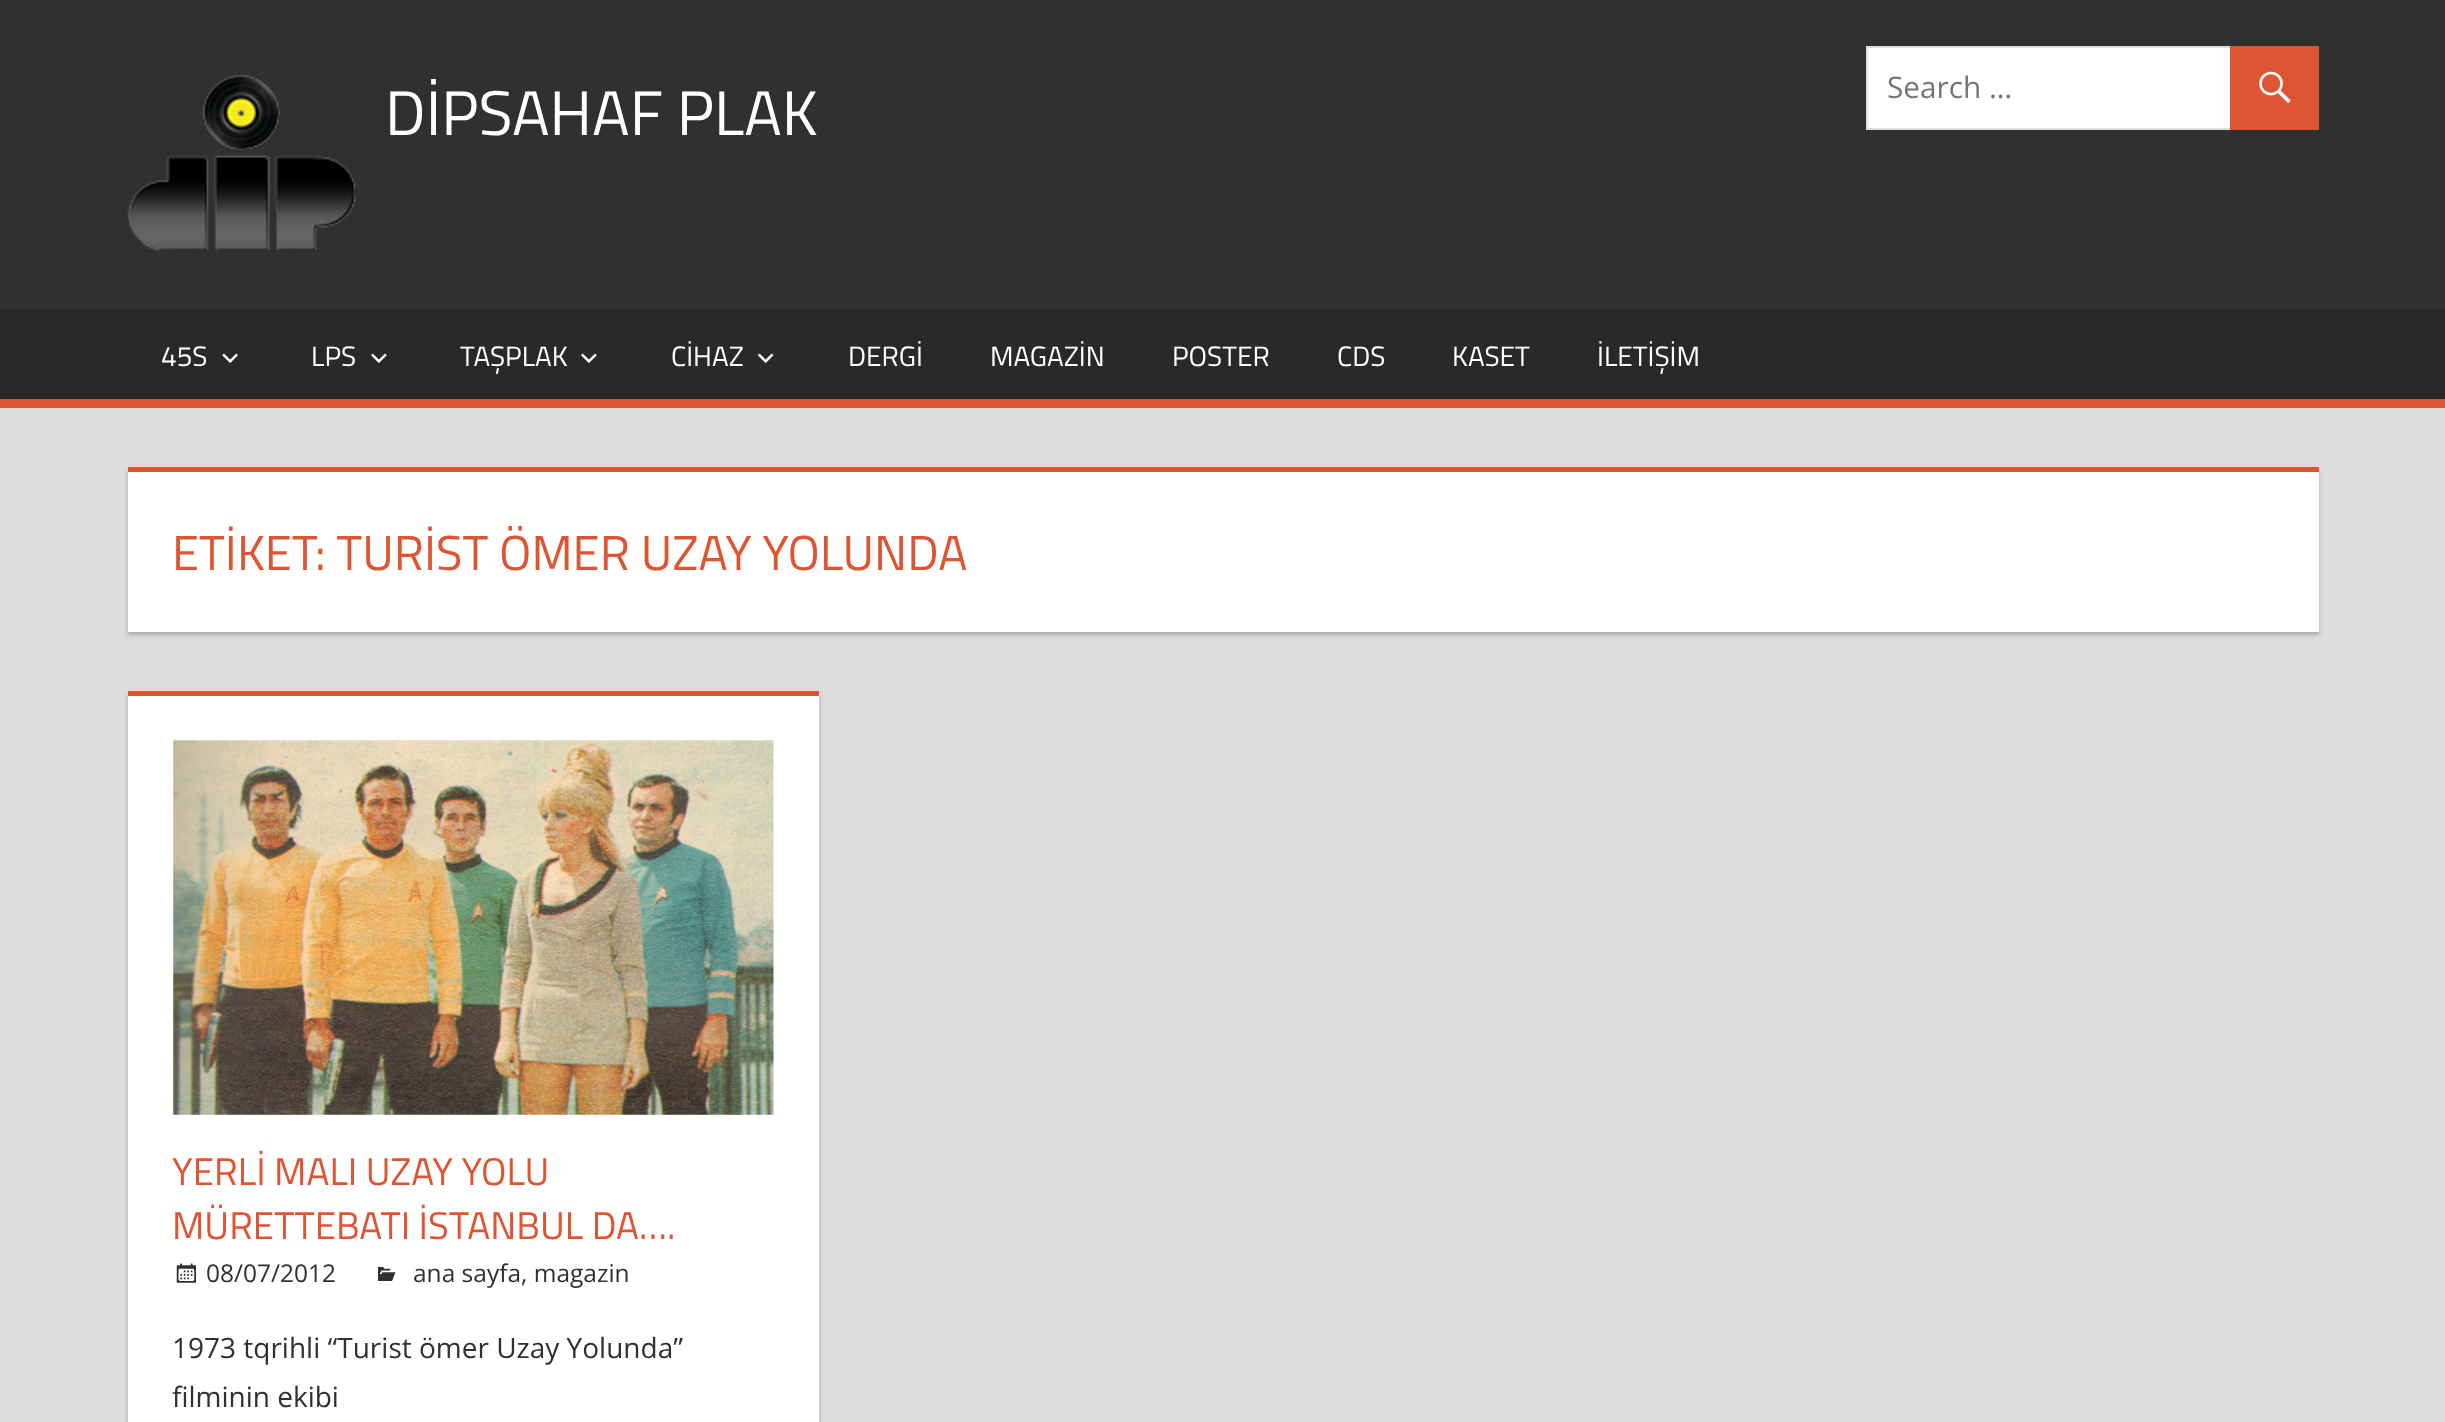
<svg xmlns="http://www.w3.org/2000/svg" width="2445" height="1422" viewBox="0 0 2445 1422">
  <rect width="100%" height="100%" fill="rgb(221,221,221)"/>
  <rect x="0" y="0" width="2445" height="310" fill="rgb(48,48,48)"/>
  <image x="127" y="75" width="229" height="176" href="pic1.png"/>
  <text x="385" y="135" font-family="Titillium Web" font-size="63" fill="rgb(255,255,255)">DİPSAHAF PLAK</text>
  <rect x="1868" y="48" width="362" height="80" fill="rgb(255,255,255)"/>
  <rect x="1867" y="47" width="451" height="82" fill="none" stroke="rgb(221,221,221)" stroke-width="2"/>
  <text x="1887" y="98" font-family="Open Sans" font-size="29.75" fill="rgb(117,117,117)">Search …</text>
  <rect x="2230" y="46" width="89" height="84" fill="rgb(221,85,51)"/>
  <image x="2259" y="71" width="32" height="33" href="pic2.png"/>
  <rect x="0" y="312" width="2445" height="87" fill="rgb(41,41,41)"/>
  <rect x="0" y="310" width="2445" height="2" fill="rgb(39,39,39)"/>
  <rect x="0" y="399" width="2445" height="9" fill="rgb(221,85,51)"/>
  <text x="161" y="366" font-family="Titillium Web" font-size="28" fill="rgb(255,255,255)">45S</text>
  <image x="222" y="353" width="16" height="10" href="pic3.png"/>
  <text x="311" y="366" font-family="Titillium Web" font-size="28" fill="rgb(255,255,255)">LPS</text>
  <image x="371" y="353" width="16" height="10" href="pic4.png"/>
  <text x="460" y="366" font-family="Titillium Web" font-size="28" fill="rgb(255,255,255)">TAŞPLAK</text>
  <image x="581" y="353" width="16" height="10" href="pic4.png"/>
  <text x="671" y="366" font-family="Titillium Web" font-size="28" fill="rgb(255,255,255)">CİHAZ</text>
  <image x="757" y="353" width="17" height="10" href="pic5.png"/>
  <g font-family="Titillium Web" font-size="28" fill="rgb(255,255,255)">
    <text x="848" y="366">DERGİ</text>
    <text x="990" y="366">MAGAZİN</text>
    <text x="1172" y="366">POSTER</text>
    <text x="1337" y="366">CDS</text>
    <text x="1452" y="366">KASET</text>
    <text x="1597" y="366">İLETİŞİM</text>
  </g>
  <rect x="128" y="471" width="2191" height="164" fill="rgb(170,170,170)" filter="blur(2px)"/>
  <rect x="128" y="472" width="2191" height="160" fill="rgb(255,255,255)"/>
  <rect x="128" y="467" width="2191" height="5" fill="rgb(221,85,51)"/>
  <text x="172" y="570" font-family="Titillium Web" font-size="49" fill="rgb(221,85,51)">ETİKET: TURİST ÖMER UZAY YOLUNDA</text>
  <rect x="128" y="695" width="691" height="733" fill="rgb(170,170,170)" filter="blur(2px)"/>
  <rect x="128" y="696" width="691" height="726" fill="rgb(255,255,255)"/>
  <rect x="128" y="691" width="691" height="5" fill="rgb(221,85,51)"/>
  <image x="173" y="740" width="601" height="375" href="pic6.png"/>
  <g font-family="Titillium Web" font-size="38.5" fill="rgb(221,85,51)">
    <text>
      <tspan x="172" y="1185">YERLİ MALI UZAY YOLU</tspan>
      <tspan x="172" y="1239">MÜRETTEBATI İSTANBUL DA….</tspan>
    </text>
  </g>
  <image x="176" y="1263" width="20" height="20" href="pic7.png"/>
  <text x="206" y="1282" font-family="Open Sans" font-size="24.5" fill="rgb(48,48,48)">08/07/2012</text>
  <image x="378" y="1267" width="18" height="14" href="pic8.png"/>
  <text x="413" y="1282" font-family="Open Sans" font-size="24.5" fill="rgb(48,48,48)">ana sayfa, magazin</text>
  <g font-family="Open Sans" font-size="28" fill="rgb(48,48,48)">
    <text>
      <tspan x="172" y="1358">1973 tqrihli “Turist ömer Uzay Yolunda”</tspan>
      <tspan x="172" y="1407">filminin ekibi</tspan>
    </text>
  </g>
</svg>
